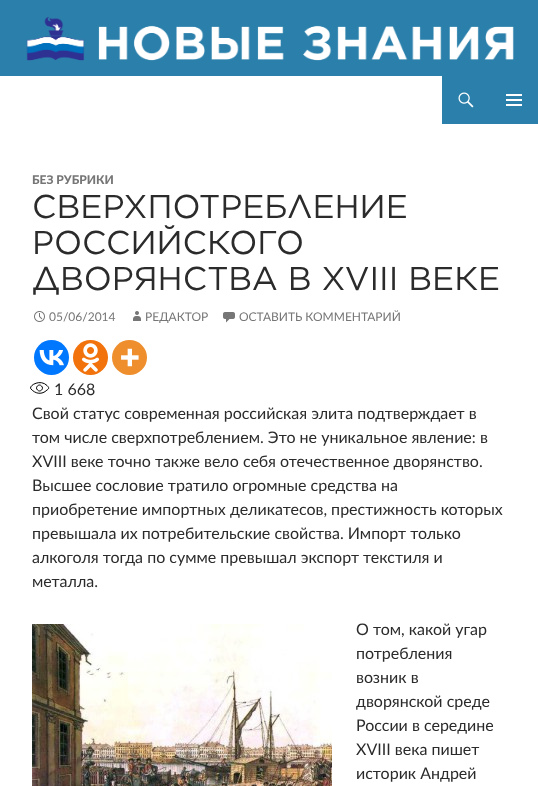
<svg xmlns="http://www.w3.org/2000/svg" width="538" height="786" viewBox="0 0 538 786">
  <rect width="100%" height="100%" fill="rgb(255,255,255)"/>
  <image x="0" y="0" width="538" height="76" href="pic1.png"/>
  <rect x="442" y="76" width="96" height="48" fill="rgb(42,128,171)"/>
  <image x="458" y="92" width="16" height="16" href="pic2.png"/>
  <image x="506" y="94" width="16" height="12" href="pic3.png"/>
  <text x="32" y="184" font-family="Lato" font-size="12" font-weight="900" fill="rgb(118,118,118)">БЕЗ РУБРИКИ</text>
  <g font-family="Gotham" font-size="33" fill="rgb(43,43,43)">
    <text>
      <tspan x="32" y="218">СВЕРХПОТРЕБЛЕНИЕ</tspan>
      <tspan x="32" y="254">РОССИЙСКОГО</tspan>
      <tspan x="32" y="290">ДВОРЯНСТВА В XVIII ВЕКЕ</tspan>
    </text>
  </g>
  <image x="34" y="311" width="11" height="11" href="pic4.png"/>
  <text x="49" y="321" font-family="Lato" font-size="12" fill="rgb(118,118,118)">05/06/2014</text>
  <image x="133" y="311" width="8" height="10" href="pic5.png"/>
  <text x="145" y="321" font-family="Lato" font-size="12" fill="rgb(118,118,118)">РЕДАКТОР</text>
  <image x="223" y="312" width="12" height="11" href="pic6.png"/>
  <text x="239" y="321" font-family="Lato" font-size="12" fill="rgb(118,118,118)">ОСТАВИТЬ КОММЕНТАРИЙ</text>
  <circle cx="51.5" cy="357.5" r="17.5" fill="rgb(0,119,255)"/>
  <image x="39" y="350" width="25" height="16" href="pic7.png"/>
  <circle cx="90.5" cy="357.5" r="17.5" fill="rgb(242,114,12)"/>
  <image x="82" y="343" width="17" height="29" href="pic8.png"/>
  <circle cx="129.5" cy="357.5" r="17.5" fill="rgb(238,142,45)"/>
  <image x="121" y="348" width="18" height="19" href="pic9.png"/>
  <path d="M47 385.5C49 387.5 49.5 388.5 47 390C42 395 35.5 394 31 389C28 386 40 378.5 47 385.5ZM41.5 386C44.5 388.5 40 393 37.5 390C34.5 387.5 39 383 41.5 386Z" fill="none" stroke="rgb(0,0,0)"/>
  <g font-family="Lato" font-size="16" fill="rgb(43,43,43)">
    <text x="54" y="395">1 668</text>
    <text>
      <tspan x="32" y="419">Свой статус современная российская элита подтверждает в</tspan>
      <tspan x="32" y="443">том числе сверхпотреблением. Это не уникальное явление: в</tspan>
      <tspan x="32" y="467">XVIII веке точно также вело себя отечественное дворянство.</tspan>
      <tspan x="32" y="491">Высшее сословие тратило огромные средства на</tspan>
      <tspan x="32" y="515">приобретение импортных деликатесов, престижность которых</tspan>
      <tspan x="32" y="539">превышала их потребительские свойства. Импорт только</tspan>
      <tspan x="32" y="563">алкоголя тогда по сумме превышал экспорт текстиля и</tspan>
      <tspan x="32" y="587">металла.</tspan>
    </text>
  </g>
  <image x="32" y="624" width="300" height="162" href="pic10.png"/>
  <g font-family="Lato" font-size="16" fill="rgb(43,43,43)">
    <text>
      <tspan x="356" y="635">О том, какой угар</tspan>
      <tspan x="356" y="659">потребления</tspan>
      <tspan x="356" y="683">возник в</tspan>
      <tspan x="356" y="707">дворянской среде</tspan>
      <tspan x="356" y="731">России в середине</tspan>
      <tspan x="356" y="755">XVIII века пишет</tspan>
      <tspan x="356" y="779">историк Андрей</tspan>
    </text>
  </g>
</svg>
